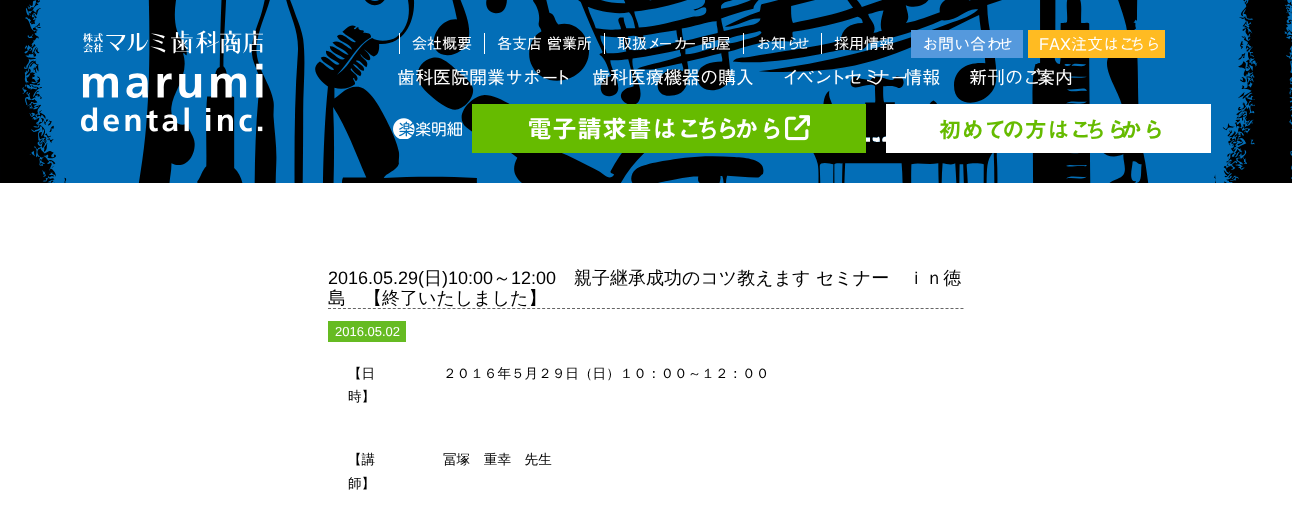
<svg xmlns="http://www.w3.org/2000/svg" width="1292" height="520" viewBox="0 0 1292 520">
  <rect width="100%" height="100%" fill="rgb(255,255,255)"/>
  <image x="0" y="0" width="1292" height="183" href="pic1.png"/>
  <image x="81" y="30" width="182" height="102" href="pic2.png"/>
  <rect x="399" y="33" width="1" height="21" fill="rgb(255,255,255)"/>
  <text x="412" y="49" font-family="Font" font-size="15" fill="rgb(255,255,255)">会社概要</text>
  <rect x="484" y="33" width="1" height="21" fill="rgb(255,255,255)"/>
  <text x="497" y="49" font-family="Font" font-size="15" fill="rgb(255,255,255)">各支店・</text>
  <text x="547" y="49" font-family="Font" font-size="15" fill="rgb(255,255,255)">営業所</text>
  <rect x="604" y="33" width="1" height="21" fill="rgb(255,255,255)"/>
  <text x="617" y="49" font-family="Font" font-size="15" fill="rgb(255,255,255)">取扱メ</text>
  <text x="658" y="49" font-family="Font" font-size="15" fill="rgb(255,255,255)">ーカ</text>
  <text x="682" y="49" font-family="Font" font-size="15" fill="rgb(255,255,255)">ー・</text>
  <text x="701" y="49" font-family="Font" font-size="15" fill="rgb(255,255,255)">問屋</text>
  <rect x="743" y="33" width="1" height="21" fill="rgb(255,255,255)"/>
  <text x="756" y="49" font-family="Font" font-size="15" fill="rgb(255,255,255)">お知ら</text>
  <text x="795" y="49" font-family="Font" font-size="15" fill="rgb(255,255,255)">せ</text>
  <rect x="821" y="33" width="1" height="21" fill="rgb(255,255,255)"/>
  <text x="834" y="49" font-family="Font" font-size="15" fill="rgb(255,255,255)">採用情報</text>
  <rect x="911" y="30" width="112" height="28" fill="rgb(85,153,221)"/>
  <text x="922" y="50" font-family="Font" font-size="16" fill="rgb(255,255,255)">お問い合わ</text>
  <text x="997" y="50" font-family="Font" font-size="16" fill="rgb(255,255,255)">せ</text>
  <rect x="1028" y="30" width="137" height="28" fill="rgb(255,187,34)"/>
  <text x="1039" y="50" font-family="Font" font-size="16" fill="rgb(255,255,255)">FAX注文はこ</text>
  <text x="1129" y="50" font-family="Font" font-size="16" fill="rgb(255,255,255)">ちら</text>
  <g font-family="Font" font-size="18" fill="rgb(255,255,255)">
    <text x="397" y="84">歯科医院開業サポー</text>
    <text x="553" y="84">ト</text>
    <text x="592" y="84">歯科医療機器の購入</text>
    <text x="782" y="84">イ</text>
    <text x="796" y="84">ベン</text>
    <text x="828" y="84">ト</text>
    <text x="838" y="84">・</text>
    <text x="845" y="84">セミ</text>
    <text x="872" y="84">ナー</text>
    <text x="904" y="84">情報</text>
    <text x="969" y="84">新刊のご</text>
    <text x="1037" y="84">案内</text>
  </g>
  <image x="393" y="118" width="69" height="21" href="pic3.png"/>
  <rect x="472" y="104" width="394" height="49" fill="rgb(102,187,0)"/>
  <text x="527" y="138" font-family="Font" font-size="25" font-weight="600" fill="rgb(255,255,255)">電子請求書はこ</text>
  <text x="695" y="138" font-family="Font" font-size="25" font-weight="600" fill="rgb(255,255,255)">ち</text>
  <text x="715" y="138" font-family="Font" font-size="25" font-weight="600" fill="rgb(255,255,255)">ら</text>
  <text x="734" y="138" font-family="Font" font-size="25" font-weight="600" fill="rgb(255,255,255)">から</text>
  <image x="785" y="115" width="25" height="26" href="pic4.png"/>
  <rect x="886" y="104" width="325" height="49" fill="rgb(255,255,255)"/>
  <text x="939" y="138" font-family="Font" font-size="22.5" font-weight="600" fill="rgb(102,187,0)">初めて</text>
  <text x="1002" y="138" font-family="Font" font-size="22.5" font-weight="600" fill="rgb(102,187,0)">の方はこ</text>
  <text x="1084" y="138" font-family="Font" font-size="22.5" font-weight="600" fill="rgb(102,187,0)">ちら</text>
  <text x="1120" y="138" font-family="Font" font-size="22.5" font-weight="600" fill="rgb(102,187,0)">から</text>
  <path d="M328 308.5H964" fill="none" stroke="rgb(102,102,102)" stroke-dasharray="3 1.98"/>
  <text x="328" y="284" font-family="Liberation Sans" font-size="18" fill="rgb(0,0,0)">2016.05.29(</text>
  <text x="424" y="284" font-family="WenQuanYi Zen Hei" font-size="18" font-weight="500" fill="rgb(0,0,0)">日</text>
  <text x="442" y="284" font-family="Liberation Sans" font-size="18" fill="rgb(0,0,0)">)10:00</text>
  <text x="493" y="284" font-family="WenQuanYi Zen Hei" font-size="18" font-weight="500" fill="rgb(0,0,0)">～</text>
  <text x="511" y="284" font-family="Liberation Sans" font-size="18" fill="rgb(0,0,0)">12:00</text>
  <g font-family="WenQuanYi Zen Hei" font-size="18" font-weight="500" fill="rgb(0,0,0)">
    <text x="574" y="284">親子継承成功のコツ教えます セミナー　ｉｎ徳</text>
    <text x="328" y="304">島　【終了いたしました】</text>
  </g>
  <rect x="328" y="321" width="78" height="21" fill="rgb(102,187,34)"/>
  <text x="335" y="336" font-family="Liberation Sans" font-size="13" fill="rgb(255,255,255)">2016.05.02</text>
  <g font-family="WenQuanYi Zen Hei" font-size="13.6" font-weight="500" fill="rgb(0,0,0)">
    <text>
      <tspan x="348" y="378">【日</tspan>
      <tspan x="348" y="401">時】</tspan>
    </text>
    <text x="443" y="378">２０１６年５月２９日（日）１０：００～１２：００</text>
    <text>
      <tspan x="348" y="464">【講</tspan>
      <tspan x="348" y="488">師】</tspan>
    </text>
    <text x="443" y="464">冨塚　重幸　先生</text>
  </g>
</svg>
